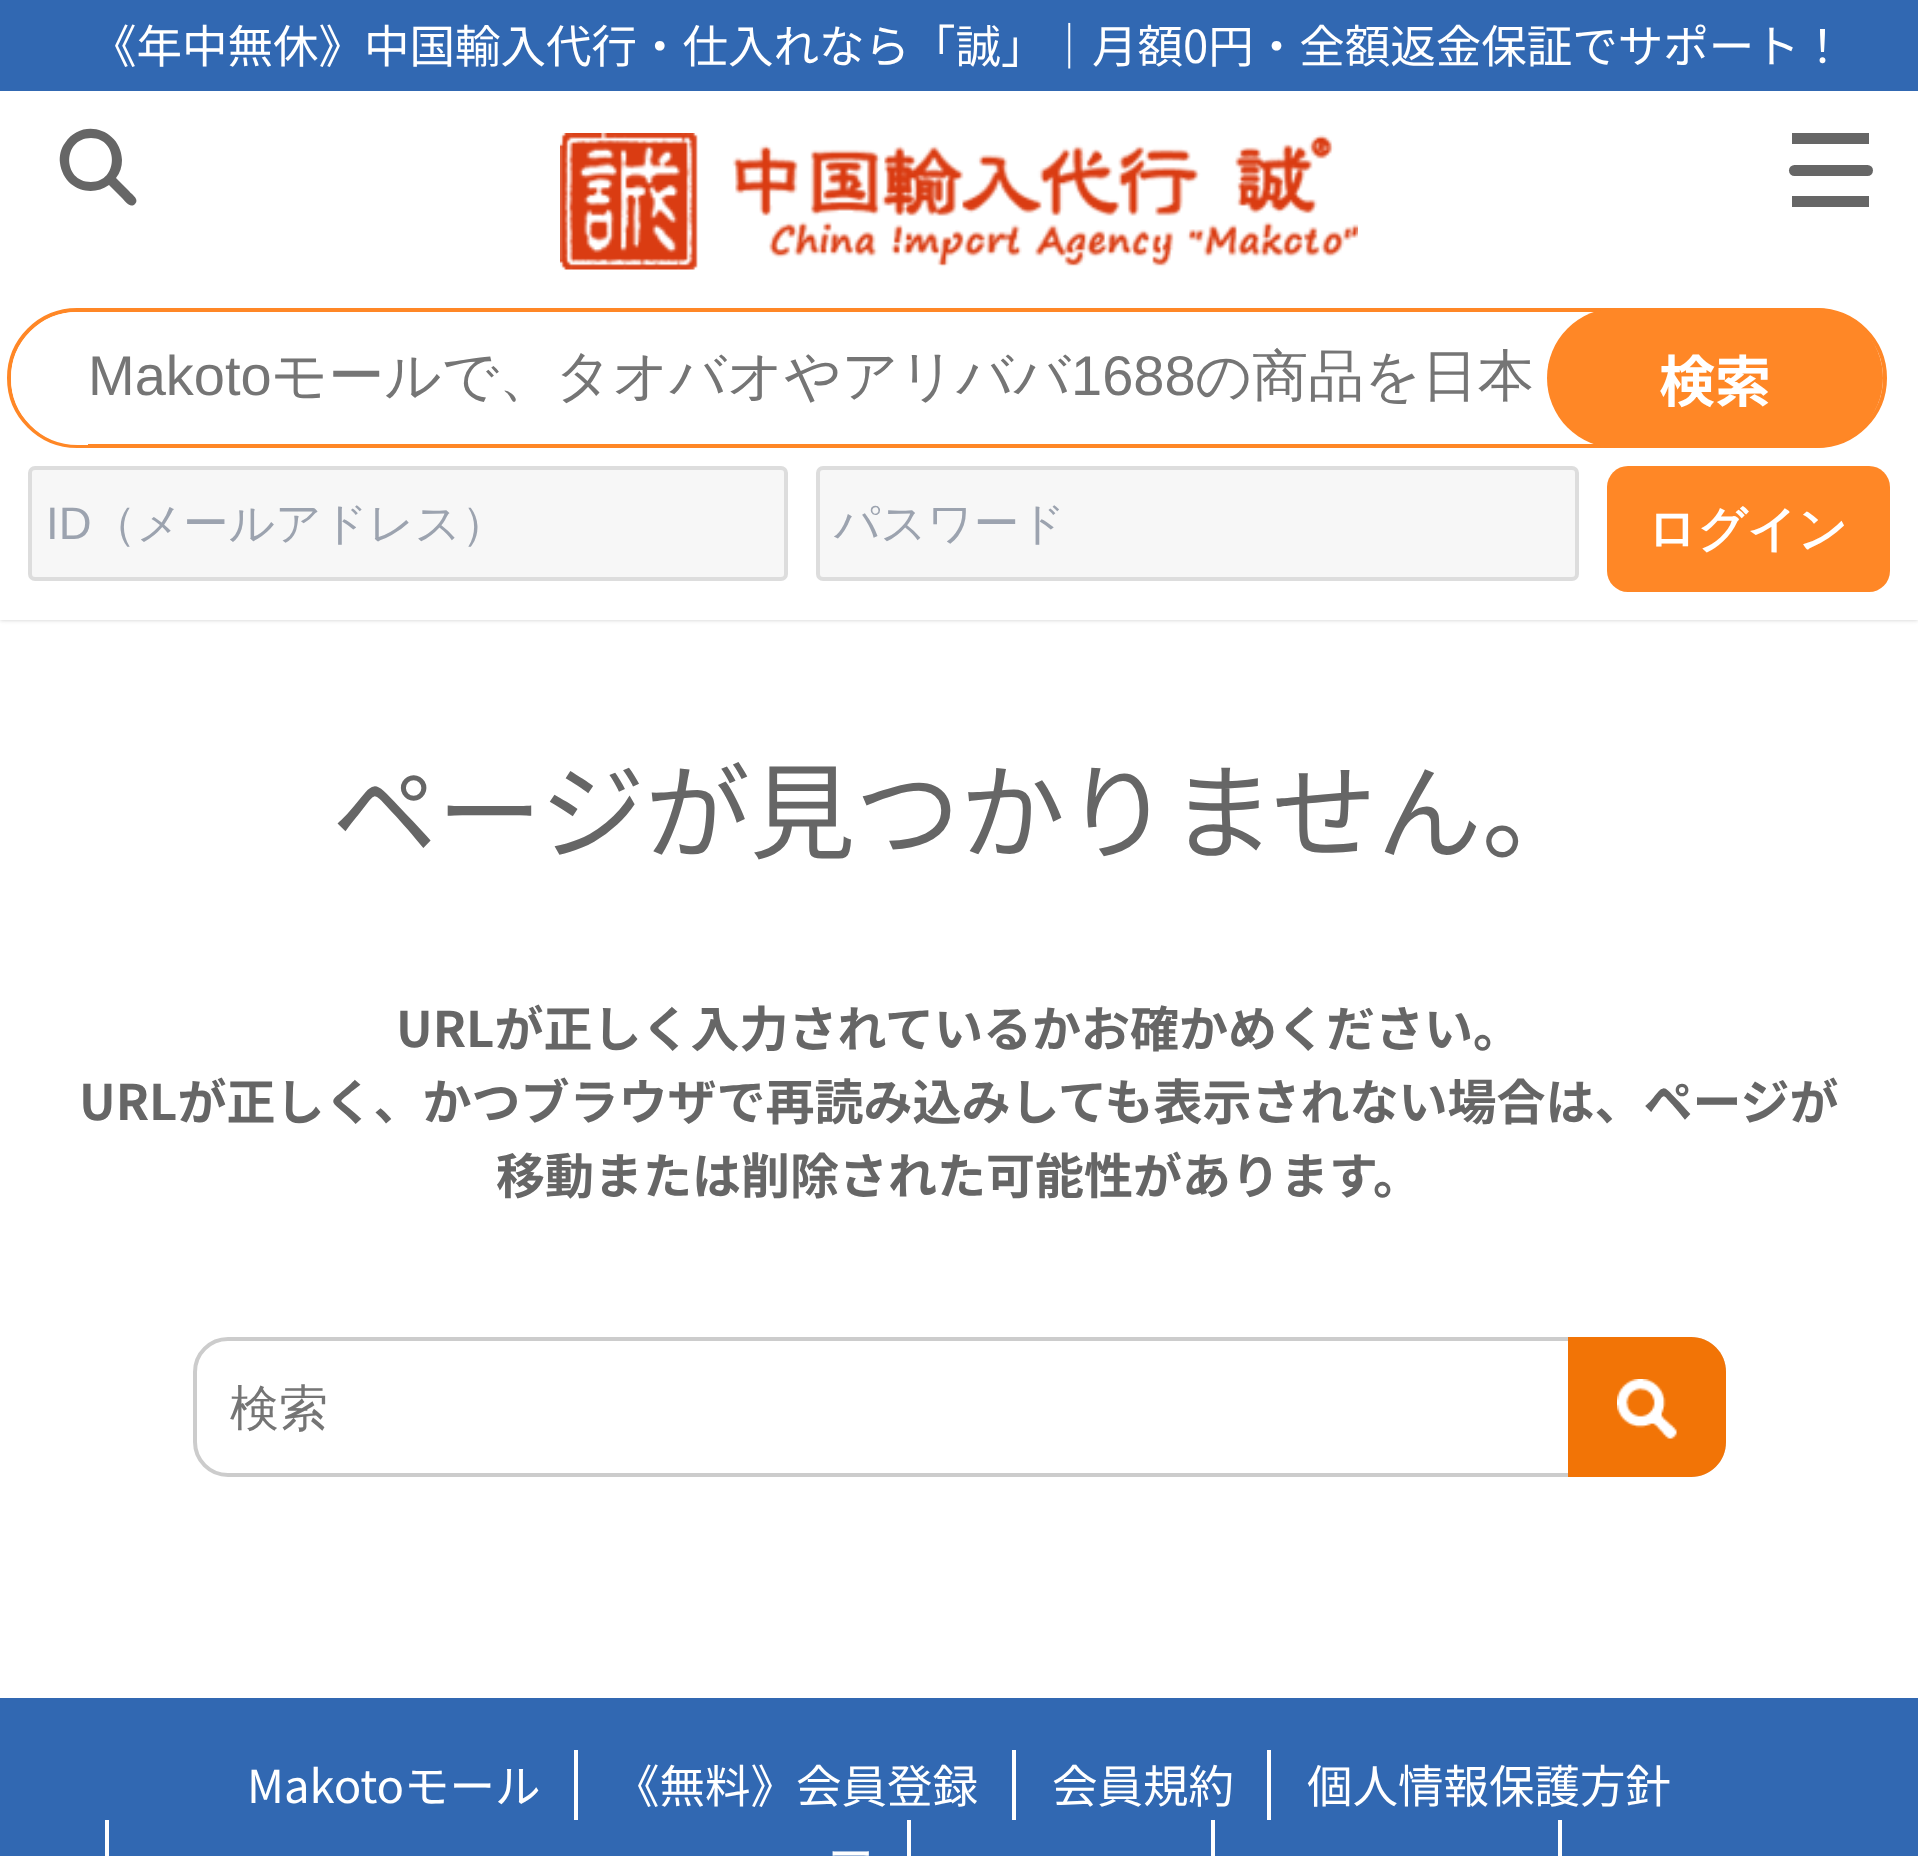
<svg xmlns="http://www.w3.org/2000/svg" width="1918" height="1856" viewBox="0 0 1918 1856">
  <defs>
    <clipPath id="clip1"><path d="M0 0H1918V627H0ZM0 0H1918V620H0Z" clip-rule="evenodd"/></clipPath>
  </defs>
  <rect width="100%" height="100%" fill="rgb(255,255,255)"/>
  <g clip-path="url(#clip1)">
    <rect x="0" y="0" width="1918" height="620" fill="rgba(0,0,0,0.2)" filter="blur(2px)"/>
  </g>
  <rect x="0" y="619" width="1918" height="1" fill="rgba(255,255,255,0.95)"/>
  <rect x="0" y="0" width="1918" height="91" fill="rgb(49,104,178)"/>
  <text x="91" y="63" font-family="Noto Sans JP" font-size="45.5" fill="rgb(255,255,255)">《年中無休》中国輸入代行・仕入れなら「誠」｜月額0円・全額返金保証でサポート！</text>
  <path d="M122 160C122 167 120 173 116 178L129 191C131 194 140 199 135 204C130 209 124 200 122 198L109 185C98 193 82 193 71 184C65 179 61 171 60 163C59 156 61 148 65 143C82 117 121 129 122 160ZM91 182C119 182 119 138 91 138C62 138 62 182 91 182Z" fill="rgb(102,102,102)"/>
  <image x="560" y="133" width="798" height="137" href="pic1.png"/>
  <rect x="1792" y="133" width="77" height="11" fill="rgb(102,102,102)"/>
  <rect x="1789" y="165" width="84" height="11" rx="5.5" fill="rgb(102,102,102)"/>
  <rect x="1792" y="196" width="77" height="11" fill="rgb(102,102,102)"/>
  <rect x="9" y="310" width="1876" height="136" rx="68" fill="none" stroke="rgb(255,135,38)" stroke-width="4"/>
  <path d="M77.5 314H86V443H77.5C42 443 13 414 13 378.5C13 343 42 314 77.5 314Z" fill="none" stroke="rgb(255,255,255)" stroke-width="4"/>
  <text x="88" y="395" font-family="Liberation Sans" font-size="56" fill="rgb(117,117,117)">Makoto</text>
  <text x="271" y="395" font-family="WenQuanYi Zen Hei" font-size="56" font-weight="500" fill="rgb(117,117,117)">モールで、タオバオやアリババ</text>
  <text x="1071" y="395" font-family="Liberation Sans" font-size="56" fill="rgb(117,117,117)">1688</text>
  <text x="1195" y="395" font-family="WenQuanYi Zen Hei" font-size="56" font-weight="500" fill="rgb(117,117,117)">の商品を日本</text>
  <rect x="1547" y="308" width="336" height="140" rx="70" fill="rgb(255,135,38)"/>
  <text x="1659" y="402" font-family="Noto Sans JP" font-size="56" font-weight="bold" fill="rgb(255,255,255)">検索</text>
  <rect x="30" y="468" width="756" height="111" rx="5" fill="rgb(247,247,247)" stroke="rgb(221,221,221)" stroke-width="4"/>
  <text x="46" y="539" font-family="Liberation Sans" font-size="45.5" fill="rgb(156,163,175)">ID</text>
  <text x="91" y="539" font-family="WenQuanYi Zen Hei" font-size="45.5" font-weight="500" fill="rgb(156,163,175)">（メールアドレス）</text>
  <rect x="818" y="468" width="759" height="111" rx="5" fill="rgb(247,247,247)" stroke="rgb(221,221,221)" stroke-width="4"/>
  <text x="834" y="539" font-family="WenQuanYi Zen Hei" font-size="45.5" font-weight="500" fill="rgb(156,163,175)">パスワード</text>
  <rect x="1607" y="466" width="283" height="126" rx="21" fill="rgb(255,135,38)"/>
  <text x="1647" y="546" font-family="WenQuanYi Zen Hei" font-size="49" font-weight="bold" fill="rgb(255,255,255)">ログイン</text>
  <text x="332" y="851" font-family="Noto Sans JP" font-size="105" fill="rgb(102,102,102)">ページが見つかりません。</text>
  <g font-family="Noto Sans JP" font-size="49" font-weight="bold" fill="rgb(102,102,102)">
    <text x="396" y="1047">URLが正しく入力されているかお確かめください。</text>
    <text x="79" y="1120">URLが正しく、かつブラウザで再読み込みしても表示されない場合は、ページが</text>
    <text x="496" y="1194">移動または削除された可能性があります。</text>
  </g>
  <rect x="195" y="1339" width="1529" height="136" rx="33" fill="none" stroke="rgb(204,204,204)" stroke-width="4"/>
  <text x="230" y="1425" font-family="WenQuanYi Zen Hei" font-size="49" font-weight="500" fill="rgb(117,117,117)">検索</text>
  <path d="M1568 1337H1691C1710.5 1337 1726 1352.5 1726 1372V1442C1726 1461.5 1710.5 1477 1691 1477H1568Z" fill="rgb(242,116,6)"/>
  <image x="1617" y="1379" width="60" height="60" href="pic2.png"/>
  <rect x="0" y="1698" width="1918" height="158" fill="rgb(49,104,178)"/>
  <text x="247" y="1803" font-family="Noto Sans JP" font-size="45.5" fill="rgb(255,255,255)">Makotoモール</text>
  <rect x="574" y="1750" width="4" height="70" fill="rgb(255,255,255)"/>
  <text x="614" y="1803" font-family="Noto Sans JP" font-size="45.5" fill="rgb(255,255,255)">《無料》会員登録</text>
  <rect x="1012" y="1750" width="4" height="70" fill="rgb(255,255,255)"/>
  <text x="1052" y="1803" font-family="Noto Sans JP" font-size="45.5" fill="rgb(255,255,255)">会員規約</text>
  <rect x="1267" y="1750" width="4" height="70" fill="rgb(255,255,255)"/>
  <text x="1307" y="1803" font-family="Noto Sans JP" font-size="45.5" fill="rgb(255,255,255)">個人情報保護方針</text>
  <rect x="105" y="1820" width="4" height="36" fill="rgb(255,255,255)"/>
  <text x="828" y="1871" font-family="Noto Sans JP" font-size="45.5" fill="rgb(255,255,255)">ー</text>
  <rect x="907" y="1820" width="4" height="36" fill="rgb(255,255,255)"/>
  <rect x="1211" y="1820" width="4" height="36" fill="rgb(255,255,255)"/>
  <rect x="1558" y="1820" width="4" height="36" fill="rgb(255,255,255)"/>
</svg>
